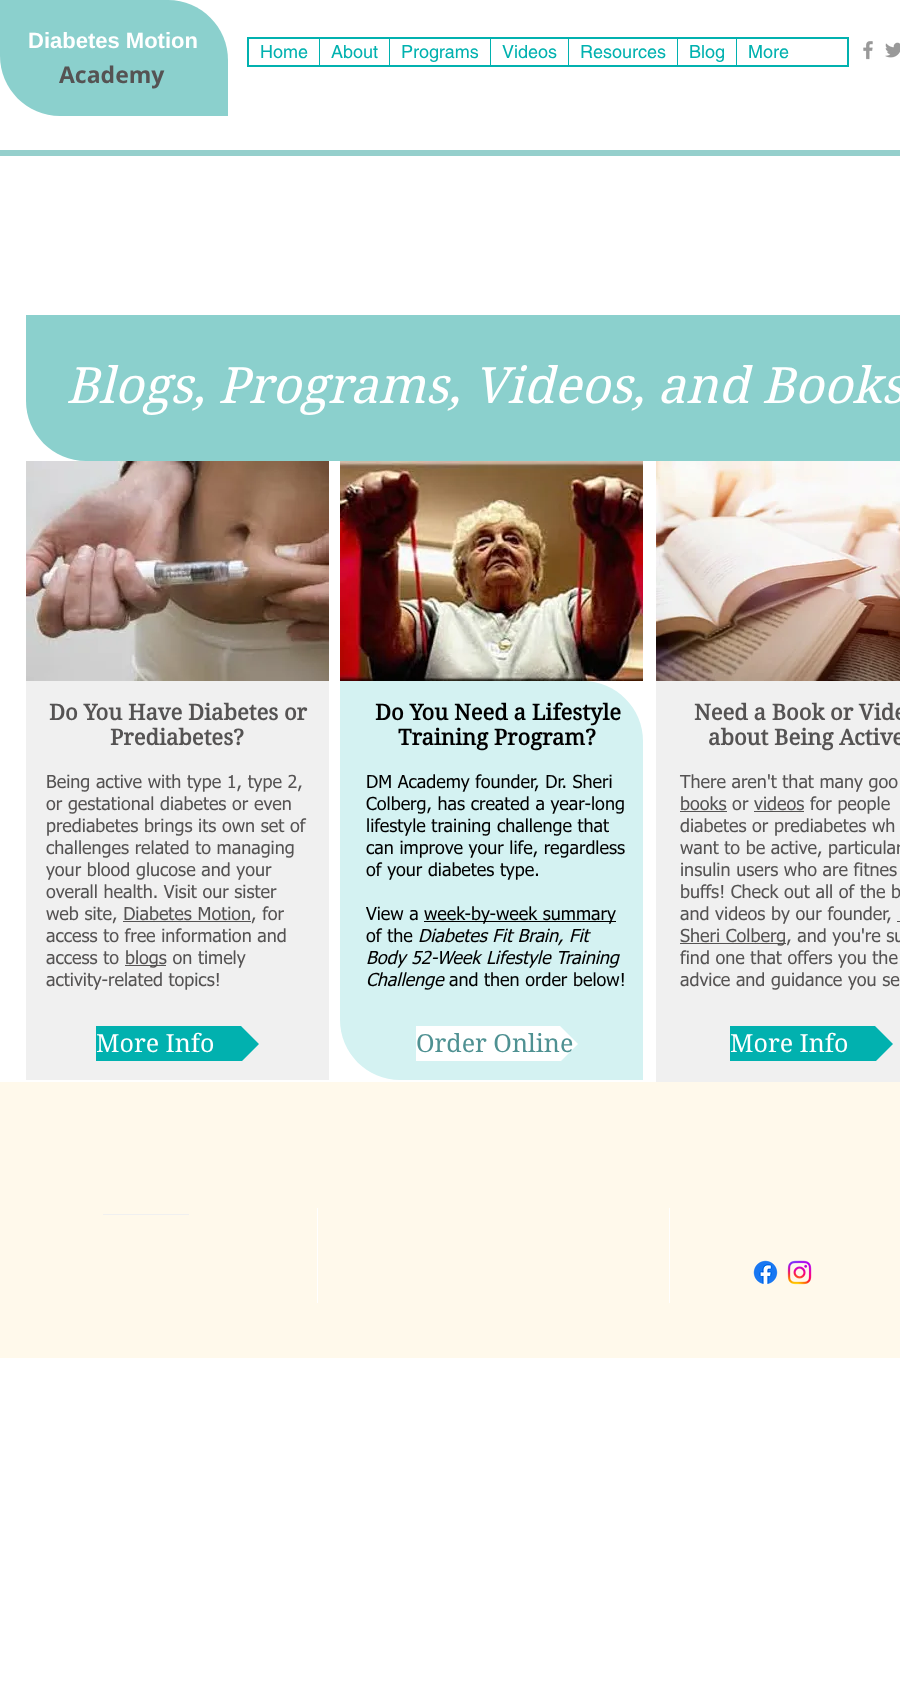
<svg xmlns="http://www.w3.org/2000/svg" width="900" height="1689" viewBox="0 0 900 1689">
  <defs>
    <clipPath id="clip1"><rect x="96" y="1026" width="163" height="35"/></clipPath>
    <clipPath id="clip2"><rect x="416" y="1026" width="162" height="35"/></clipPath>
    <clipPath id="clip3"><rect x="730" y="1026" width="163" height="35"/></clipPath>
  </defs>
  <rect width="100%" height="100%" fill="rgb(255,255,255)"/>
  <path d="M0 0H168C201 0 228 27 228 60V116H60C27 116 0 89 0 56Z" fill="rgb(139,208,205)"/>
  <text x="28" y="48" font-family="Liberation Sans" font-size="22" font-weight="bold" fill="rgb(255,255,255)">Diabetes Motion</text>
  <text x="59" y="83" font-family="Open Sans" font-size="23" font-weight="bold" fill="rgb(85,83,83)">Academy</text>
  <rect x="248" y="38" width="600" height="28" fill="none" stroke="rgb(1,177,175)" stroke-width="2"/>
  <text x="260" y="58" font-family="helvetica" font-size="18" fill="rgb(1,177,175)">Home</text>
  <rect x="319" y="39" width="1" height="26" fill="rgb(1,177,175)"/>
  <text x="331" y="58" font-family="helvetica" font-size="18" fill="rgb(1,177,175)">About</text>
  <rect x="389" y="39" width="1" height="26" fill="rgb(1,177,175)"/>
  <text x="401" y="58" font-family="helvetica" font-size="18" fill="rgb(1,177,175)">Programs</text>
  <rect x="490" y="39" width="1" height="26" fill="rgb(1,177,175)"/>
  <text x="502" y="58" font-family="helvetica" font-size="18" fill="rgb(1,177,175)">Videos</text>
  <rect x="568" y="39" width="1" height="26" fill="rgb(1,177,175)"/>
  <text x="580" y="58" font-family="helvetica" font-size="18" fill="rgb(1,177,175)">Resources</text>
  <rect x="677" y="39" width="1" height="26" fill="rgb(1,177,175)"/>
  <text x="689" y="58" font-family="helvetica" font-size="18" fill="rgb(1,177,175)">Blog</text>
  <rect x="736" y="39" width="1" height="26" fill="rgb(1,177,175)"/>
  <text x="748" y="58" font-family="helvetica" font-size="18" fill="rgb(1,177,175)">More</text>
  <image x="863" y="41" width="10" height="19" href="pic1.png"/>
  <image x="885" y="42" width="15" height="16" href="pic2.png"/>
  <rect x="0" y="150" width="900" height="6" fill="rgb(149,207,204)"/>
  <path d="M26 315H897C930 315 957 342 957 375V461H86C53 461 26 434 26 401Z" fill="rgb(139,208,205)"/>
  <text x="66" y="403" font-family="'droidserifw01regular'" font-size="50" font-style="italic" fill="rgb(255,255,255)">Blogs, Programs, Videos, and Books</text>
  <image x="26" y="461" width="303" height="220" href="pic3.png"/>
  <image x="340" y="461" width="303" height="220" href="pic4.png"/>
  <image x="656" y="461" width="244" height="220" href="pic5.png"/>
  <rect x="26" y="681" width="303" height="399" fill="rgb(240,240,240)"/>
  <g font-family="'droidserifw01regular'" font-size="22" font-weight="bold" fill="rgb(85,83,83)">
    <text x="49" y="720">Do You Have Diabetes or</text>
    <text x="110" y="745">Prediabetes?</text>
  </g>
  <g font-family="tahoma" font-size="18" fill="rgb(85,83,83)">
    <text>
      <tspan x="46" y="788">Being active with type 1, type 2,</tspan>
      <tspan x="46" y="810">or gestational diabetes or even</tspan>
      <tspan x="46" y="832">prediabetes brings its own set of</tspan>
      <tspan x="46" y="854">challenges related to managing</tspan>
      <tspan x="46" y="876">your blood glucose and your</tspan>
      <tspan x="46" y="898">overall health. Visit our sister</tspan>
      <tspan x="46" y="920">web site, Diabetes Motion, for</tspan>
    </text>
  </g>
  <rect x="123" y="921" width="128" height="1" fill="rgb(85,83,83)"/>
  <g font-family="tahoma" font-size="18" fill="rgb(85,83,83)">
    <text>
      <tspan x="46" y="942">access to free information and</tspan>
      <tspan x="46" y="964">access to</tspan>
    </text>
  </g>
  <rect x="125" y="965" width="41" height="1" fill="rgb(85,83,83)"/>
  <g font-family="tahoma" font-size="18" fill="rgb(85,83,83)">
    <text x="125" y="964">blogs on timely</text>
    <text x="46" y="986">activity-related topics!</text>
  </g>
  <rect x="96" y="1026" width="113" height="35" fill="rgb(1,177,175)"/>
  <g clip-path="url(#clip1)">
    <path d="M259 1044H209V994ZM209 1044H259L209 1094Z" fill="rgb(1,177,175)"/>
  </g>
  <text x="96" y="1052" font-family="'droidserifw01regular'" font-size="25" fill="rgb(255,255,255)">More Info</text>
  <path d="M340 681H583C616 681 643 708 643 741V1080H400C367 1080 340 1053 340 1020Z" fill="rgb(212,242,242)"/>
  <g font-family="'droidserifw01regular'" font-size="22" font-weight="bold" fill="rgb(0,0,0)">
    <text x="375" y="720">Do You Need a Lifestyle</text>
    <text x="398" y="745">Training Program?</text>
  </g>
  <g font-family="tahoma" font-size="18" fill="rgb(0,0,0)">
    <text>
      <tspan x="366" y="788">DM Academy founder, Dr. Sheri</tspan>
      <tspan x="366" y="810">Colberg, has created a year-long</tspan>
      <tspan x="366" y="832">lifestyle training challenge that</tspan>
      <tspan x="366" y="854">can improve your life, regardless</tspan>
      <tspan x="366" y="876">of your diabetes type.</tspan>
    </text>
    <text x="366" y="920">View a</text>
  </g>
  <rect x="424" y="921" width="192" height="1" fill="rgb(0,0,0)"/>
  <g font-family="tahoma" font-size="18" fill="rgb(0,0,0)">
    <text x="424" y="920">week-by-week summary</text>
    <text x="366" y="942">of the</text>
  </g>
  <g font-family="tahoma" font-size="18" font-style="italic" fill="rgb(0,0,0)">
    <text x="418" y="942">Diabetes Fit Brain, Fit</text>
    <text>
      <tspan x="366" y="964">Body 52-Week Lifestyle Training</tspan>
      <tspan x="366" y="986">Challenge</tspan>
    </text>
  </g>
  <text x="449" y="986" font-family="tahoma" font-size="18" fill="rgb(0,0,0)">and then order below!</text>
  <rect x="416" y="1026" width="112" height="35" fill="rgb(255,255,255)"/>
  <g clip-path="url(#clip2)">
    <path d="M578 1044H528V994ZM528 1044H578L528 1094Z" fill="rgb(255,255,255)"/>
  </g>
  <text x="416" y="1052" font-family="'droidserifw01regular'" font-size="25" fill="rgb(79,145,146)">Order Online</text>
  <rect x="656" y="681" width="244" height="401" fill="rgb(240,240,240)"/>
  <g font-family="'droidserifw01regular'" font-size="22" font-weight="bold" fill="rgb(85,83,83)">
    <text x="694" y="720">Need a Book or Vide</text>
    <text x="708" y="745">about Being Active</text>
  </g>
  <text x="680" y="788" font-family="tahoma" font-size="18" fill="rgb(85,83,83)">There aren't that many goo</text>
  <rect x="680" y="811" width="47" height="1" fill="rgb(85,83,83)"/>
  <text x="680" y="810" font-family="tahoma" font-size="18" fill="rgb(85,83,83)">books or videos for people</text>
  <rect x="754" y="811" width="50" height="1" fill="rgb(85,83,83)"/>
  <g font-family="tahoma" font-size="18" fill="rgb(85,83,83)">
    <text>
      <tspan x="680" y="832">diabetes or prediabetes wh</tspan>
      <tspan x="680" y="854">want to be active, particular</tspan>
      <tspan x="680" y="876">insulin users who are fitnes</tspan>
      <tspan x="680" y="898">buffs! Check out all of the b</tspan>
      <tspan x="680" y="920">and videos by our founder,</tspan>
    </text>
  </g>
  <rect x="680" y="943" width="106" height="1" fill="rgb(85,83,83)"/>
  <text x="680" y="942" font-family="tahoma" font-size="18" fill="rgb(85,83,83)">Sheri Colberg, and you're su</text>
  <rect x="897" y="921" width="3" height="1" fill="rgb(85,83,83)"/>
  <g font-family="tahoma" font-size="18" fill="rgb(85,83,83)">
    <text>
      <tspan x="680" y="964">find one that offers you the</tspan>
      <tspan x="680" y="986">advice and guidance you se</tspan>
    </text>
  </g>
  <rect x="730" y="1026" width="113" height="35" fill="rgb(1,177,175)"/>
  <g clip-path="url(#clip3)">
    <path d="M893 1044H843V994ZM843 1044H893L843 1094Z" fill="rgb(1,177,175)"/>
  </g>
  <text x="730" y="1052" font-family="'droidserifw01regular'" font-size="25" fill="rgb(255,255,255)">More Info</text>
  <rect x="0" y="1082" width="900" height="276" fill="rgb(255,249,235)"/>
  <rect x="103" y="1214" width="86" height="1" fill="rgb(240,240,240)"/>
  <rect x="317" y="1208" width="1" height="95" fill="rgb(255,255,255)"/>
  <rect x="669" y="1208" width="1" height="95" fill="rgb(255,255,255)"/>
  <image x="753" y="1260" width="25" height="24" href="pic6.png"/>
  <image x="787" y="1260" width="25" height="25" href="pic7.png"/>
</svg>
